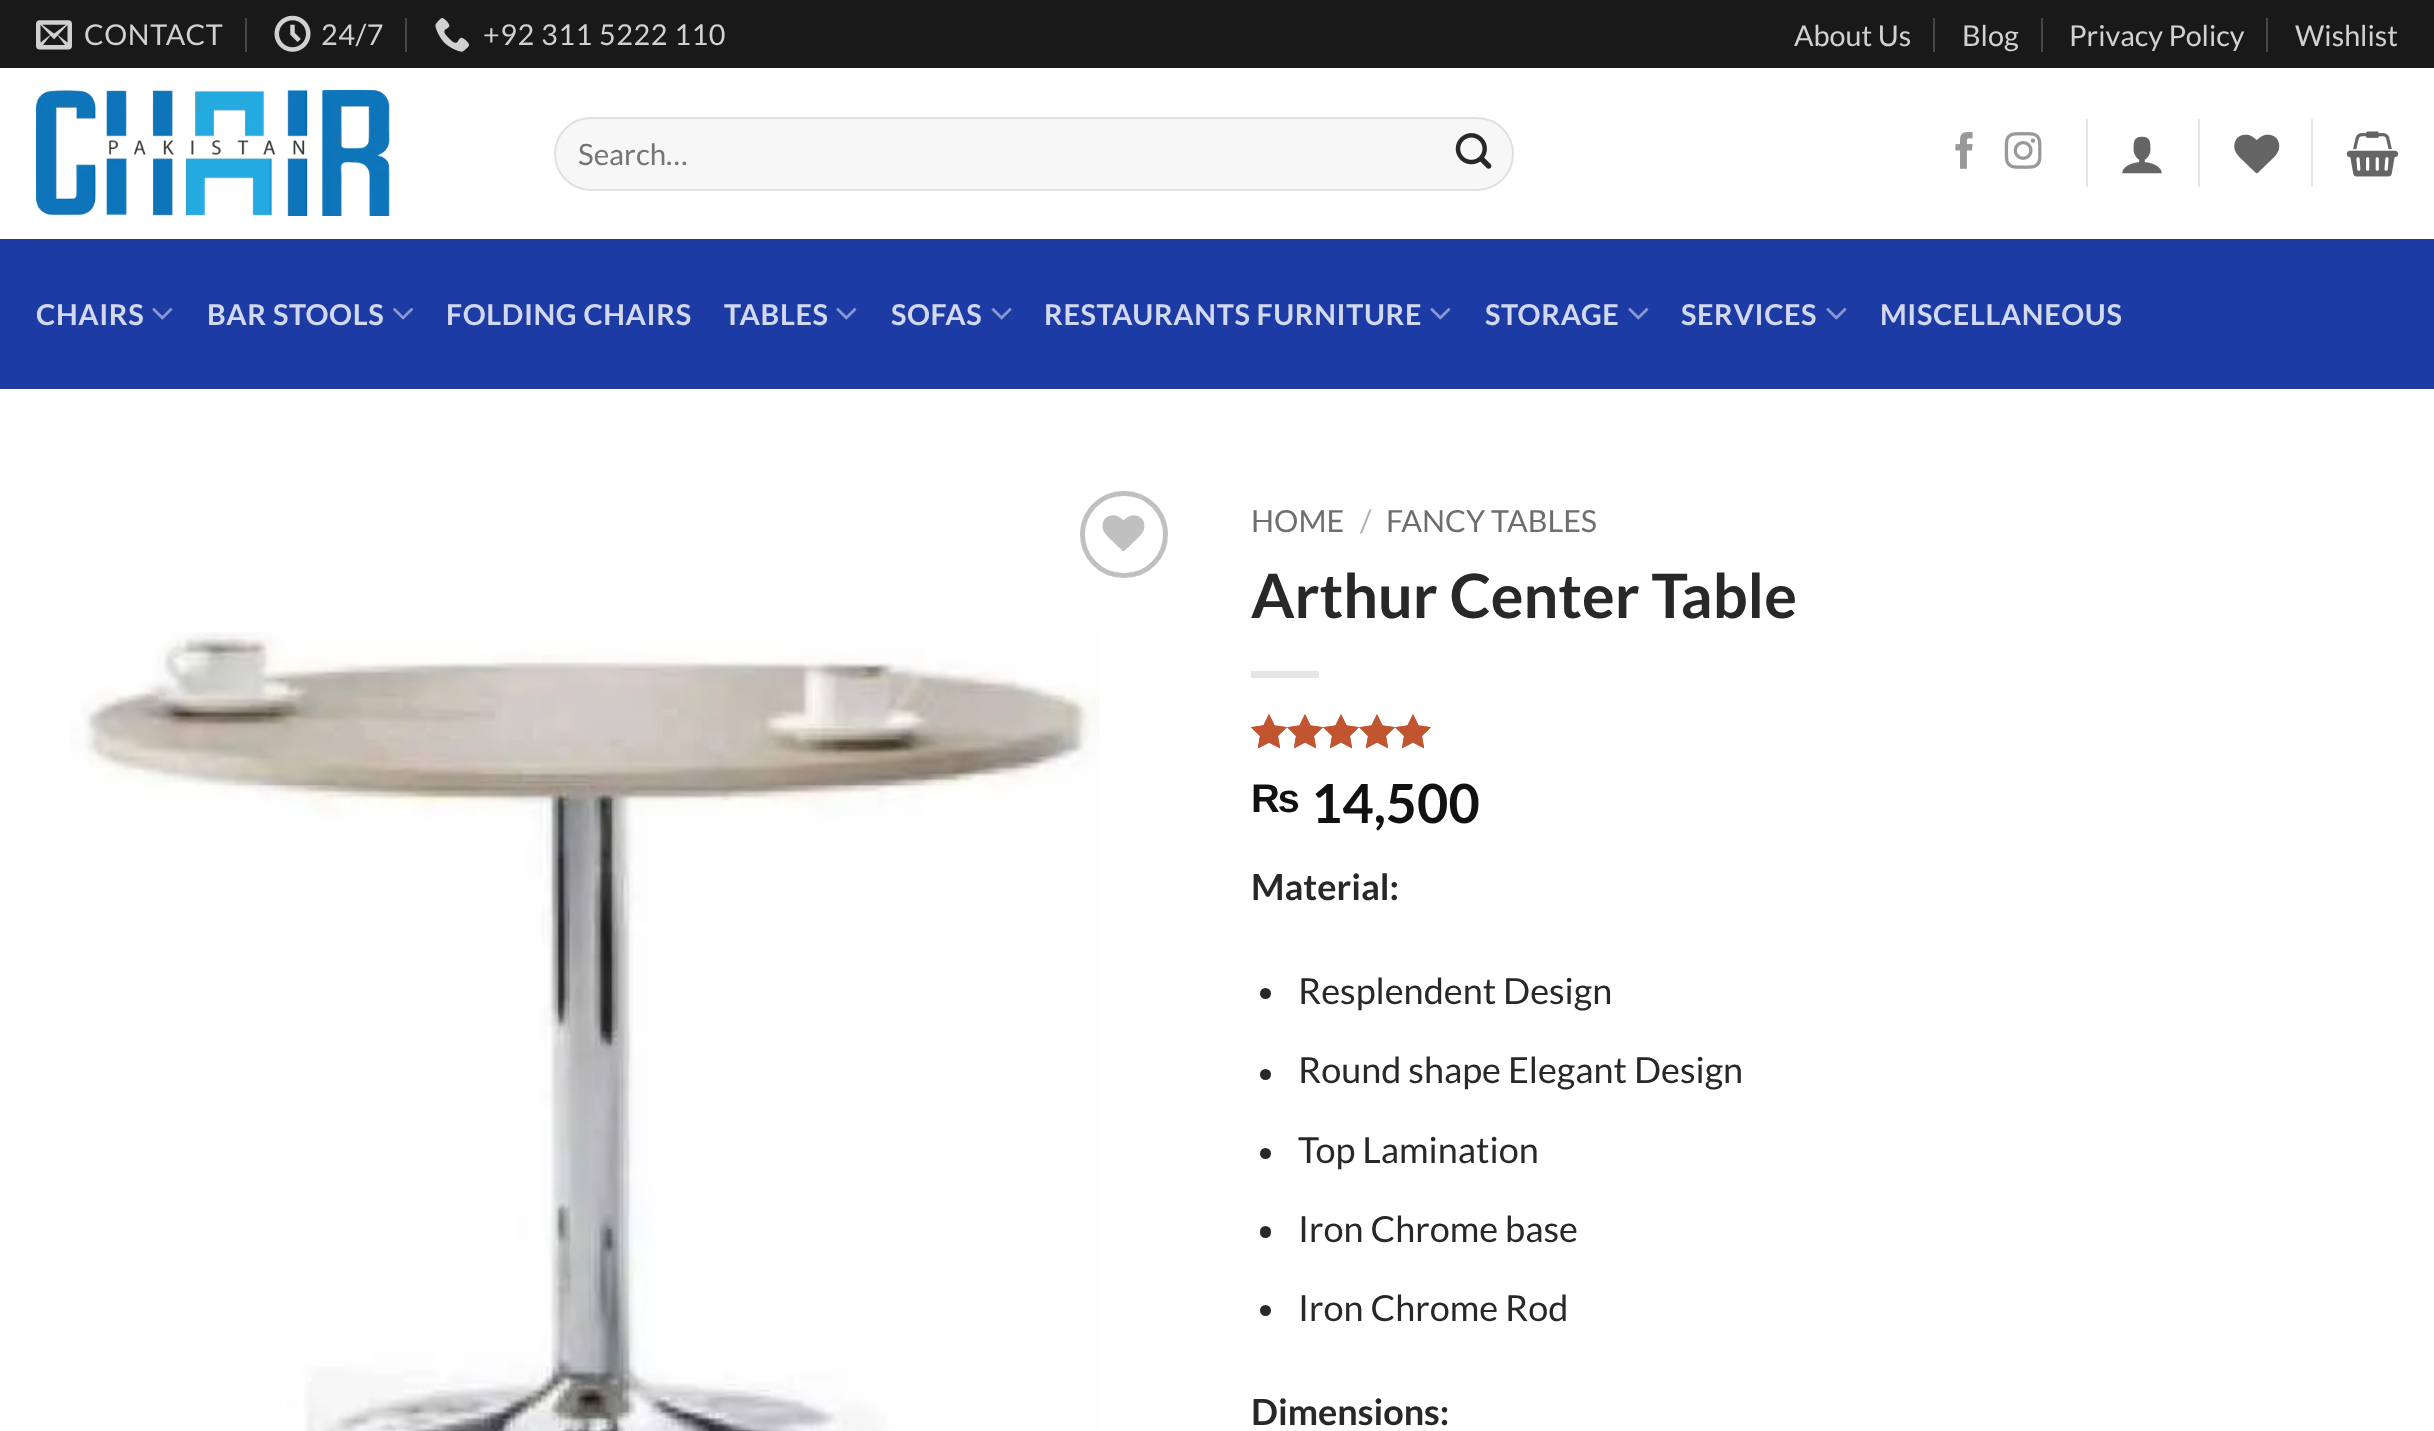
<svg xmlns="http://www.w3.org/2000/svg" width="2434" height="1431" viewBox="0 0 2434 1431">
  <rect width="100%" height="100%" fill="rgb(255,255,255)"/>
  <rect x="0" y="0" width="2434" height="68" fill="rgb(25,25,25)"/>
  <image x="36" y="20" width="36" height="30" href="pic1.png"/>
  <text x="84" y="45" font-family="Lato" font-size="28.75" letter-spacing="0.6" fill="rgb(209,209,209)">CONTACT</text>
  <rect x="245" y="18" width="2" height="34" fill="rgb(71,71,71)"/>
  <image x="274" y="15" width="37" height="37" href="pic2.png"/>
  <text x="321" y="45" font-family="Lato" font-size="28.75" letter-spacing="0.6" fill="rgb(209,209,209)">24/7</text>
  <rect x="405" y="18" width="2" height="34" fill="rgb(71,71,71)"/>
  <image x="435" y="18" width="35" height="34" href="pic3.png"/>
  <text x="483" y="45" font-family="Lato" font-size="28.75" letter-spacing="0.6" fill="rgb(209,209,209)">+92 311 5222 110</text>
  <text x="1794" y="46" font-family="Lato" font-size="28.75" fill="rgb(209,209,209)">About Us</text>
  <rect x="1933" y="18" width="2" height="34" fill="rgb(71,71,71)"/>
  <text x="1962" y="46" font-family="Lato" font-size="28.75" fill="rgb(209,209,209)">Blog</text>
  <rect x="2041" y="18" width="2" height="34" fill="rgb(71,71,71)"/>
  <text x="2069" y="46" font-family="Lato" font-size="28.75" fill="rgb(209,209,209)">Privacy Policy</text>
  <rect x="2266" y="18" width="2" height="34" fill="rgb(71,71,71)"/>
  <text x="2295" y="46" font-family="Lato" font-size="28.75" fill="rgb(209,209,209)">Wishlist</text>
  <image x="36" y="90" width="354" height="126" href="pic4.png"/>
  <rect x="554" y="117" width="960" height="74" rx="37" fill="rgb(247,247,247)"/>
  <rect x="555" y="118" width="958" height="72" rx="36" fill="none" stroke="rgba(0,0,0,0.09)" stroke-width="2"/>
  <text x="578" y="165" font-family="Lato" font-size="29.5" fill="rgb(117,117,117)">Search…</text>
  <image x="1455" y="133" width="37" height="36" href="pic5.png"/>
  <image x="1955" y="132" width="18" height="37" href="pic6.png"/>
  <image x="2004" y="132" width="38" height="37" href="pic7.png"/>
  <rect x="2086" y="119" width="2" height="68" fill="rgb(230,230,230)"/>
  <image x="2122" y="136" width="40" height="38" href="pic8.png"/>
  <rect x="2198" y="119" width="2" height="68" fill="rgb(230,230,230)"/>
  <image x="2234" y="134" width="46" height="40" href="pic9.png"/>
  <rect x="2311" y="119" width="2" height="68" fill="rgb(230,230,230)"/>
  <image x="2346" y="131" width="53" height="46" href="pic10.png"/>
  <rect x="0" y="239" width="2434" height="150" fill="rgb(29,59,165)"/>
  <rect x="36" y="239" width="2363" height="2" fill="rgb(30,57,153)"/>
  <text x="36" y="325" font-family="Lato" font-size="28.75" font-weight="bold" letter-spacing="0.6" fill="rgb(210,216,237)">CHAIRS</text>
  <image x="152" y="308" width="21" height="12" href="pic11.png"/>
  <text x="207" y="325" font-family="Lato" font-size="28.75" font-weight="bold" letter-spacing="0.6" fill="rgb(210,216,237)">BAR STOOLS</text>
  <image x="393" y="308" width="20" height="12" href="pic12.png"/>
  <g font-family="Lato" font-size="28.75" font-weight="bold" letter-spacing="0.6" fill="rgb(210,216,237)">
    <text x="446" y="325">FOLDING CHAIRS</text>
    <text x="724" y="325">TABLES</text>
  </g>
  <image x="836" y="308" width="21" height="12" href="pic11.png"/>
  <text x="891" y="325" font-family="Lato" font-size="28.75" font-weight="bold" letter-spacing="0.6" fill="rgb(210,216,237)">SOFAS</text>
  <image x="991" y="308" width="21" height="12" href="pic13.png"/>
  <text x="1044" y="325" font-family="Lato" font-size="28.75" font-weight="bold" letter-spacing="0.6" fill="rgb(210,216,237)">RESTAURANTS FURNITURE</text>
  <image x="1430" y="308" width="21" height="12" href="pic11.png"/>
  <text x="1485" y="325" font-family="Lato" font-size="28.75" font-weight="bold" letter-spacing="0.6" fill="rgb(210,216,237)">STORAGE</text>
  <image x="1628" y="308" width="21" height="12" href="pic11.png"/>
  <text x="1681" y="325" font-family="Lato" font-size="28.75" font-weight="bold" letter-spacing="0.6" fill="rgb(210,216,237)">SERVICES</text>
  <image x="1826" y="308" width="21" height="12" href="pic11.png"/>
  <text x="1880" y="325" font-family="Lato" font-size="28.75" font-weight="bold" letter-spacing="0.6" fill="rgb(210,216,237)">MISCELLANEOUS</text>
  <rect x="1082.5" y="493.5" width="83" height="82" rx="41" fill="none" stroke="rgb(192,192,192)" stroke-width="5"/>
  <image x="1102" y="515" width="43" height="37" href="pic14.png"/>
  <image x="70" y="632" width="1030" height="799" href="pic15.png"/>
  <text x="1251" y="532" font-family="Lato" font-size="30.5" fill="rgb(110,110,110)">HOME</text>
  <text x="1360" y="532" font-family="Lato" font-size="30.5" fill="rgb(178,178,178)">/</text>
  <text x="1386" y="532" font-family="Lato" font-size="30.5" fill="rgb(110,110,110)">FANCY TABLES</text>
  <text x="1251" y="618" font-family="Lato" font-size="61.25" font-weight="bold" fill="rgb(40,40,40)">Arthur Center Table</text>
  <rect x="1251" y="671" width="68" height="7" fill="rgb(230,230,230)"/>
  <image x="1251" y="714" width="180" height="35" href="pic16.png"/>
  <image x="1251" y="714" width="180" height="35" href="pic17.png"/>
  <image x="1251" y="714" width="23" height="35" href="pic18.png"/>
  <text x="1251" y="812" font-family="Liberation Sans" font-size="40" font-weight="bold" fill="rgb(17,17,17)">₨</text>
  <text x="1311" y="823" font-family="Lato" font-size="54" font-weight="bold" fill="rgb(17,17,17)">14,500</text>
  <text x="1251" y="900" font-family="Lato" font-size="36" font-weight="bold" fill="rgb(40,40,40)">Material:</text>
  <circle cx="1265.5" cy="993.5" r="5.5" fill="rgb(40,40,40)"/>
  <text x="1298" y="1004" font-family="Lato" font-size="36" fill="rgb(40,40,40)">Resplendent Design</text>
  <circle cx="1265.5" cy="1074.5" r="5.5" fill="rgb(40,40,40)"/>
  <text x="1298" y="1083" font-family="Lato" font-size="36" fill="rgb(40,40,40)">Round shape Elegant Design</text>
  <circle cx="1265.5" cy="1153.5" r="5.5" fill="rgb(40,40,40)"/>
  <text x="1298" y="1163" font-family="Lato" font-size="36" fill="rgb(40,40,40)">Top Lamination</text>
  <rect x="1260" y="1226" width="11" height="12" rx="5.5" fill="rgb(40,40,40)"/>
  <text x="1298" y="1242" font-family="Lato" font-size="36" fill="rgb(40,40,40)">Iron Chrome base</text>
  <circle cx="1265.5" cy="1310.5" r="5.5" fill="rgb(40,40,40)"/>
  <text x="1298" y="1321" font-family="Lato" font-size="36" fill="rgb(40,40,40)">Iron Chrome Rod</text>
  <text x="1251" y="1425" font-family="Lato" font-size="36" font-weight="bold" fill="rgb(40,40,40)">Dimensions:</text>
</svg>
